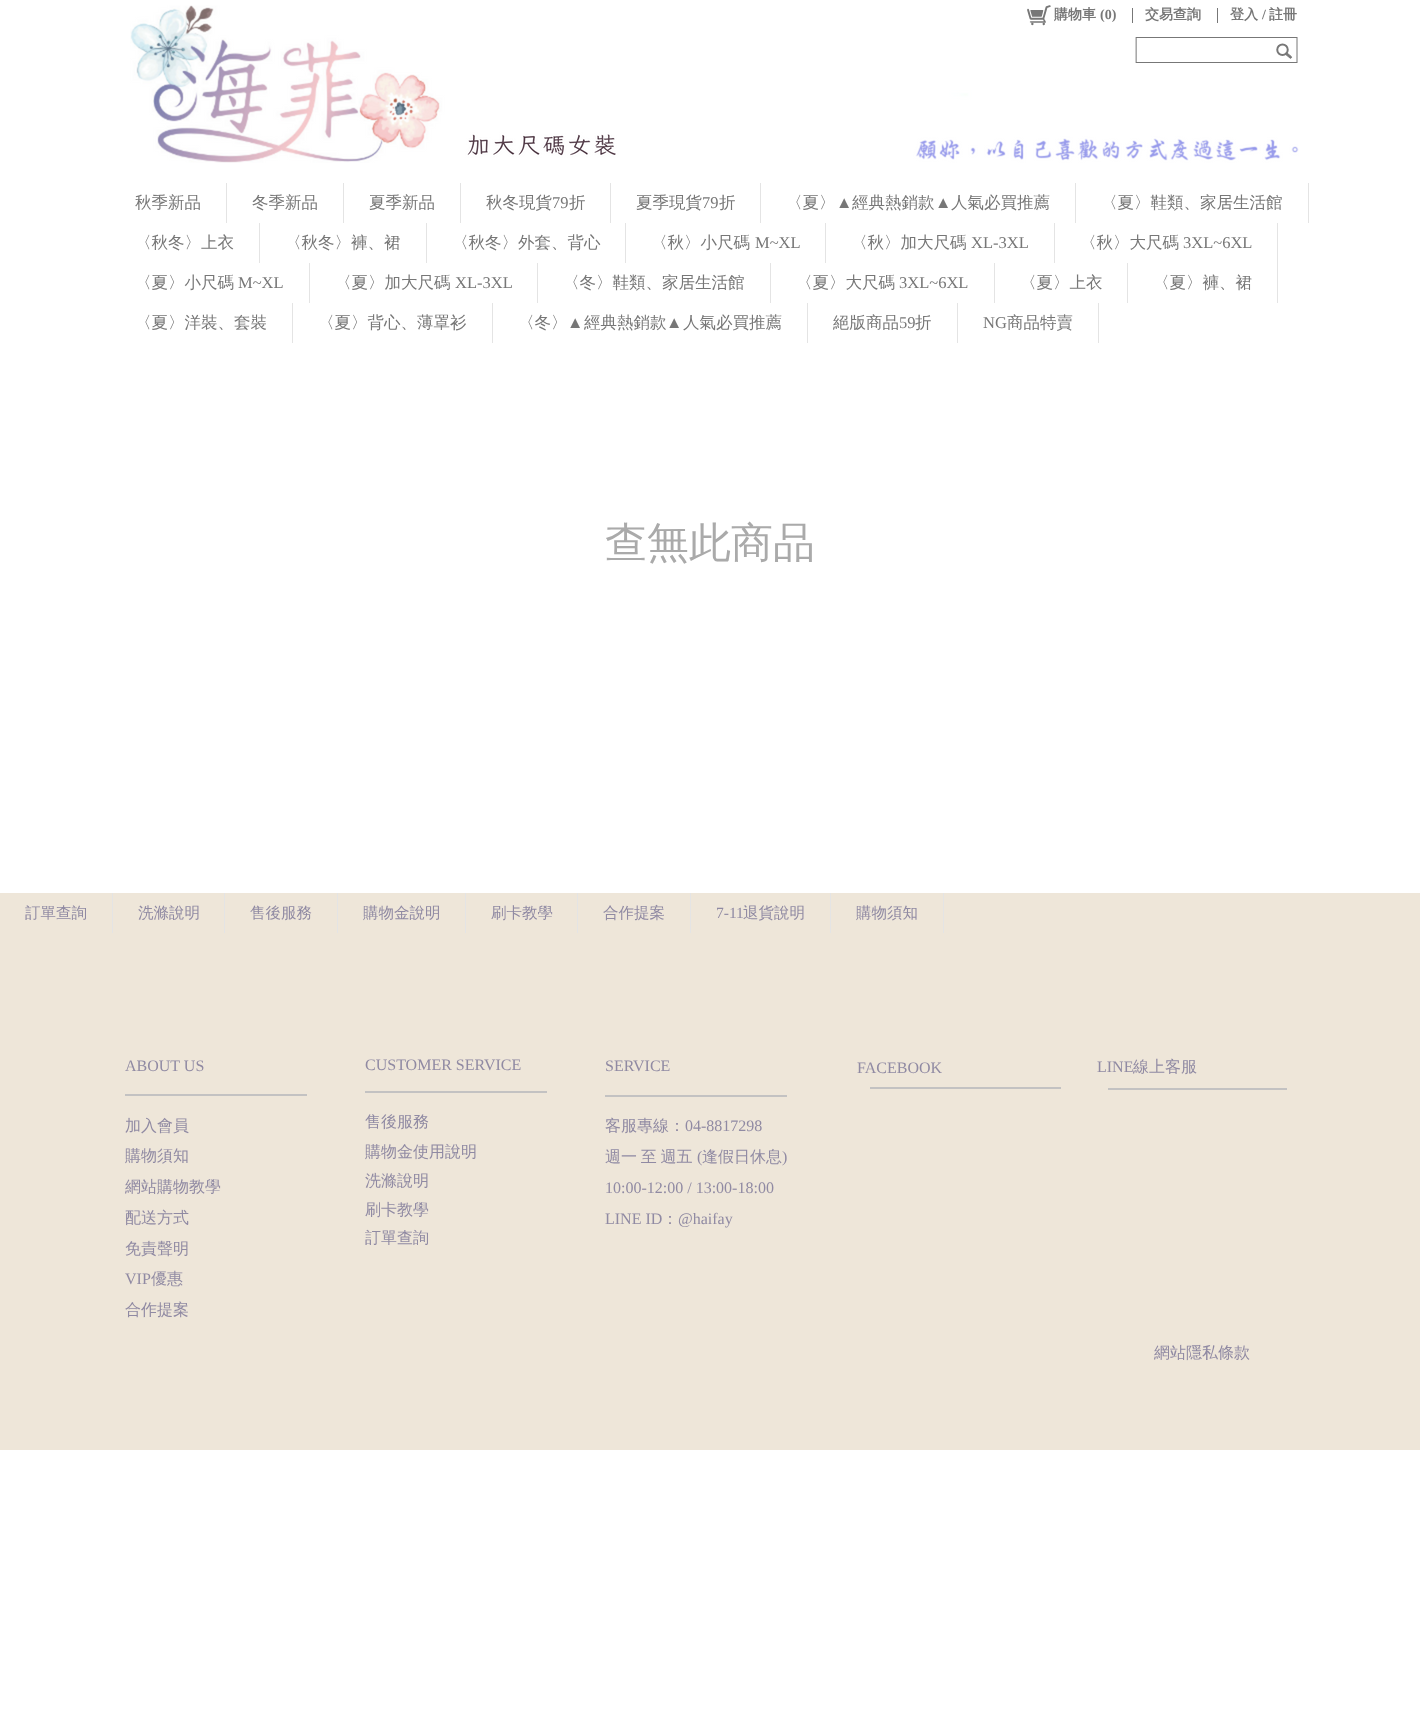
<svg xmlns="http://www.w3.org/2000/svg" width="1420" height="1734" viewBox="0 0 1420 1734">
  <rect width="100%" height="100%" fill="rgb(255,255,255)"/>
  <image x="130" y="5" width="1169" height="158" href="pic1.png"/>
  <image x="1027" y="5" width="24" height="21" href="pic2.png"/>
  <text x="1054" y="19" font-family="WenQuanYi Zen Hei" font-size="14" font-weight="bold" fill="rgb(119,119,119)">購物車</text>
  <text x="1100" y="19" font-family="Liberation Serif" font-size="14" font-weight="bold" fill="rgb(119,119,119)">(0)</text>
  <rect x="1132" y="8" width="1" height="15" fill="rgb(119,119,119)"/>
  <text x="1145" y="19" font-family="WenQuanYi Zen Hei" font-size="14" font-weight="bold" fill="rgb(119,119,119)">交易查詢</text>
  <rect x="1217" y="8" width="1" height="15" fill="rgb(119,119,119)"/>
  <text x="1230" y="19" font-family="WenQuanYi Zen Hei" font-size="14" font-weight="bold" fill="rgb(119,119,119)">登入</text>
  <text x="1262" y="19" font-family="Liberation Serif" font-size="14" font-weight="bold" fill="rgb(119,119,119)">/</text>
  <text x="1269" y="19" font-family="WenQuanYi Zen Hei" font-size="14" font-weight="bold" fill="rgb(119,119,119)">註冊</text>
  <image x="1135" y="37" width="138" height="26" href="pic3.png"/>
  <image x="1273" y="37" width="25" height="26" href="pic4.png"/>
  <rect x="226" y="183" width="1" height="40" fill="rgb(228,228,228)"/>
  <text x="135" y="208" font-family="WenQuanYi Zen Hei" font-size="16.5" font-weight="500" fill="rgb(119,119,119)">秋季新品</text>
  <rect x="343" y="183" width="1" height="40" fill="rgb(228,228,228)"/>
  <text x="252" y="208" font-family="WenQuanYi Zen Hei" font-size="16.5" font-weight="500" fill="rgb(119,119,119)">冬季新品</text>
  <rect x="460" y="183" width="1" height="40" fill="rgb(228,228,228)"/>
  <text x="369" y="208" font-family="WenQuanYi Zen Hei" font-size="16.5" font-weight="500" fill="rgb(119,119,119)">夏季新品</text>
  <rect x="610" y="183" width="1" height="40" fill="rgb(228,228,228)"/>
  <text x="486" y="208" font-family="WenQuanYi Zen Hei" font-size="16.5" font-weight="500" fill="rgb(119,119,119)">秋冬現貨</text>
  <text x="552" y="208" font-family="Liberation Serif" font-size="16.5" fill="rgb(119,119,119)">79</text>
  <text x="569" y="208" font-family="WenQuanYi Zen Hei" font-size="16.5" font-weight="500" fill="rgb(119,119,119)">折</text>
  <rect x="760" y="183" width="1" height="40" fill="rgb(228,228,228)"/>
  <text x="636" y="208" font-family="WenQuanYi Zen Hei" font-size="16.5" font-weight="500" fill="rgb(119,119,119)">夏季現貨</text>
  <text x="702" y="208" font-family="Liberation Serif" font-size="16.5" fill="rgb(119,119,119)">79</text>
  <text x="719" y="208" font-family="WenQuanYi Zen Hei" font-size="16.5" font-weight="500" fill="rgb(119,119,119)">折</text>
  <rect x="1075" y="183" width="1" height="40" fill="rgb(228,228,228)"/>
  <text x="786" y="208" font-family="WenQuanYi Zen Hei" font-size="16.5" font-weight="500" fill="rgb(119,119,119)">〈夏〉</text>
  <text x="836" y="208" font-family="Liberation Serif" font-size="16.5" fill="rgb(119,119,119)">▲</text>
  <text x="852" y="208" font-family="WenQuanYi Zen Hei" font-size="16.5" font-weight="500" fill="rgb(119,119,119)">經典熱銷款</text>
  <text x="935" y="208" font-family="Liberation Serif" font-size="16.5" fill="rgb(119,119,119)">▲</text>
  <text x="951" y="208" font-family="WenQuanYi Zen Hei" font-size="16.5" font-weight="500" fill="rgb(119,119,119)">人氣必買推薦</text>
  <rect x="1308" y="183" width="1" height="40" fill="rgb(228,228,228)"/>
  <text x="1101" y="208" font-family="WenQuanYi Zen Hei" font-size="16.5" font-weight="500" fill="rgb(119,119,119)">〈夏〉鞋類、家居生活館</text>
  <rect x="259" y="223" width="1" height="40" fill="rgb(228,228,228)"/>
  <text x="135" y="248" font-family="WenQuanYi Zen Hei" font-size="16.5" font-weight="500" fill="rgb(119,119,119)">〈秋冬〉上衣</text>
  <rect x="426" y="223" width="1" height="40" fill="rgb(228,228,228)"/>
  <text x="285" y="248" font-family="WenQuanYi Zen Hei" font-size="16.5" font-weight="500" fill="rgb(119,119,119)">〈秋冬〉褲、裙</text>
  <rect x="625" y="223" width="1" height="40" fill="rgb(228,228,228)"/>
  <text x="452" y="248" font-family="WenQuanYi Zen Hei" font-size="16.5" font-weight="500" fill="rgb(119,119,119)">〈秋冬〉外套、背心</text>
  <rect x="825" y="223" width="1" height="40" fill="rgb(228,228,228)"/>
  <text x="651" y="248" font-family="WenQuanYi Zen Hei" font-size="16.5" font-weight="500" fill="rgb(119,119,119)">〈秋〉小尺碼</text>
  <text x="755" y="248" font-family="Liberation Serif" font-size="16.5" fill="rgb(119,119,119)">M~XL</text>
  <rect x="1054" y="223" width="1" height="40" fill="rgb(228,228,228)"/>
  <text x="851" y="248" font-family="WenQuanYi Zen Hei" font-size="16.5" font-weight="500" fill="rgb(119,119,119)">〈秋〉加大尺碼</text>
  <text x="971" y="248" font-family="Liberation Serif" font-size="16.5" fill="rgb(119,119,119)">XL-3XL</text>
  <rect x="1277" y="223" width="1" height="80" fill="rgb(228,228,228)"/>
  <text x="1080" y="248" font-family="WenQuanYi Zen Hei" font-size="16.5" font-weight="500" fill="rgb(119,119,119)">〈秋〉大尺碼</text>
  <text x="1183" y="248" font-family="Liberation Serif" font-size="16.5" fill="rgb(119,119,119)">3XL~6XL</text>
  <rect x="309" y="263" width="1" height="40" fill="rgb(228,228,228)"/>
  <text x="135" y="288" font-family="WenQuanYi Zen Hei" font-size="16.5" font-weight="500" fill="rgb(119,119,119)">〈夏〉小尺碼</text>
  <text x="238" y="288" font-family="Liberation Serif" font-size="16.5" fill="rgb(119,119,119)">M~XL</text>
  <rect x="537" y="263" width="1" height="40" fill="rgb(228,228,228)"/>
  <text x="335" y="288" font-family="WenQuanYi Zen Hei" font-size="16.5" font-weight="500" fill="rgb(119,119,119)">〈夏〉加大尺碼</text>
  <text x="455" y="288" font-family="Liberation Serif" font-size="16.5" fill="rgb(119,119,119)">XL-3XL</text>
  <rect x="770" y="263" width="1" height="40" fill="rgb(228,228,228)"/>
  <text x="563" y="288" font-family="WenQuanYi Zen Hei" font-size="16.5" font-weight="500" fill="rgb(119,119,119)">〈冬〉鞋類、家居生活館</text>
  <rect x="994" y="263" width="1" height="40" fill="rgb(228,228,228)"/>
  <text x="796" y="288" font-family="WenQuanYi Zen Hei" font-size="16.5" font-weight="500" fill="rgb(119,119,119)">〈夏〉大尺碼</text>
  <text x="899" y="288" font-family="Liberation Serif" font-size="16.5" fill="rgb(119,119,119)">3XL~6XL</text>
  <rect x="1127" y="263" width="1" height="40" fill="rgb(228,228,228)"/>
  <g font-family="WenQuanYi Zen Hei" font-size="16.5" font-weight="500" fill="rgb(119,119,119)">
    <text x="1020" y="288">〈夏〉上衣</text>
    <text x="1153" y="288">〈夏〉褲、裙</text>
  </g>
  <rect x="292" y="303" width="1" height="40" fill="rgb(228,228,228)"/>
  <text x="135" y="328" font-family="WenQuanYi Zen Hei" font-size="16.5" font-weight="500" fill="rgb(119,119,119)">〈夏〉洋裝、套裝</text>
  <rect x="492" y="303" width="1" height="40" fill="rgb(228,228,228)"/>
  <text x="318" y="328" font-family="WenQuanYi Zen Hei" font-size="16.5" font-weight="500" fill="rgb(119,119,119)">〈夏〉背心、薄罩衫</text>
  <rect x="807" y="303" width="1" height="40" fill="rgb(228,228,228)"/>
  <text x="518" y="328" font-family="WenQuanYi Zen Hei" font-size="16.5" font-weight="500" fill="rgb(119,119,119)">〈冬〉</text>
  <text x="567" y="328" font-family="Liberation Serif" font-size="16.5" fill="rgb(119,119,119)">▲</text>
  <text x="584" y="328" font-family="WenQuanYi Zen Hei" font-size="16.5" font-weight="500" fill="rgb(119,119,119)">經典熱銷款</text>
  <text x="666" y="328" font-family="Liberation Serif" font-size="16.5" fill="rgb(119,119,119)">▲</text>
  <text x="683" y="328" font-family="WenQuanYi Zen Hei" font-size="16.5" font-weight="500" fill="rgb(119,119,119)">人氣必買推薦</text>
  <rect x="957" y="303" width="1" height="40" fill="rgb(228,228,228)"/>
  <text x="833" y="328" font-family="WenQuanYi Zen Hei" font-size="16.5" font-weight="500" fill="rgb(119,119,119)">絕版商品</text>
  <text x="899" y="328" font-family="Liberation Serif" font-size="16.5" fill="rgb(119,119,119)">59</text>
  <text x="915" y="328" font-family="WenQuanYi Zen Hei" font-size="16.5" font-weight="500" fill="rgb(119,119,119)">折</text>
  <rect x="1098" y="303" width="1" height="40" fill="rgb(228,228,228)"/>
  <text x="983" y="328" font-family="Liberation Serif" font-size="16.5" fill="rgb(119,119,119)">NG</text>
  <text x="1007" y="328" font-family="WenQuanYi Zen Hei" font-size="16.5" font-weight="500" fill="rgb(119,119,119)">商品特賣</text>
  <text x="605" y="557" font-family="WenQuanYi Zen Hei" font-size="42" font-weight="500" fill="rgb(170,170,170)">查無此商品</text>
  <rect x="0" y="893" width="1420" height="557" fill="rgb(238,230,217)"/>
  <rect x="112" y="893" width="1" height="40" fill="rgb(228,228,228)"/>
  <text x="25" y="918" font-family="WenQuanYi Zen Hei" font-size="15.5" font-weight="500" fill="rgb(144,138,163)">訂單查詢</text>
  <rect x="224" y="893" width="1" height="40" fill="rgb(228,228,228)"/>
  <text x="138" y="918" font-family="WenQuanYi Zen Hei" font-size="15.5" font-weight="500" fill="rgb(144,138,163)">洗滌說明</text>
  <rect x="337" y="893" width="1" height="40" fill="rgb(228,228,228)"/>
  <text x="250" y="918" font-family="WenQuanYi Zen Hei" font-size="15.5" font-weight="500" fill="rgb(144,138,163)">售後服務</text>
  <rect x="465" y="893" width="1" height="40" fill="rgb(228,228,228)"/>
  <text x="363" y="918" font-family="WenQuanYi Zen Hei" font-size="15.5" font-weight="500" fill="rgb(144,138,163)">購物金說明</text>
  <rect x="577" y="893" width="1" height="40" fill="rgb(228,228,228)"/>
  <text x="491" y="918" font-family="WenQuanYi Zen Hei" font-size="15.5" font-weight="500" fill="rgb(144,138,163)">刷卡教學</text>
  <rect x="690" y="893" width="1" height="40" fill="rgb(228,228,228)"/>
  <text x="603" y="918" font-family="WenQuanYi Zen Hei" font-size="15.5" font-weight="500" fill="rgb(144,138,163)">合作提案</text>
  <rect x="830" y="893" width="1" height="40" fill="rgb(228,228,228)"/>
  <text x="716" y="918" font-family="Liberation Serif" font-size="15.5" fill="rgb(144,138,163)">7-11</text>
  <text x="743" y="918" font-family="WenQuanYi Zen Hei" font-size="15.5" font-weight="500" fill="rgb(144,138,163)">退貨說明</text>
  <rect x="943" y="893" width="1" height="40" fill="rgb(228,228,228)"/>
  <text x="856" y="918" font-family="WenQuanYi Zen Hei" font-size="15.5" font-weight="500" fill="rgb(144,138,163)">購物須知</text>
  <text x="125" y="1071" font-family="Liberation Serif" font-size="16" fill="rgb(144,138,163)">ABOUT US</text>
  <rect x="125" y="1094" width="182" height="2" fill="rgb(195,194,194)"/>
  <g font-family="WenQuanYi Zen Hei" font-size="16" font-weight="500" fill="rgb(144,138,163)">
    <text>
      <tspan x="125" y="1131">加入會員</tspan>
      <tspan x="125" y="1161">購物須知</tspan>
      <tspan x="125" y="1192">網站購物教學</tspan>
      <tspan x="125" y="1223">配送方式</tspan>
      <tspan x="125" y="1254">免責聲明</tspan>
    </text>
  </g>
  <text x="125" y="1284" font-family="Liberation Serif" font-size="16" fill="rgb(144,138,163)">VIP</text>
  <g font-family="WenQuanYi Zen Hei" font-size="16" font-weight="500" fill="rgb(144,138,163)">
    <text x="151" y="1284">優惠</text>
    <text x="125" y="1315">合作提案</text>
  </g>
  <text x="365" y="1070" font-family="Liberation Serif" font-size="16" fill="rgb(144,138,163)">CUSTOMER SERVICE</text>
  <rect x="365" y="1091" width="182" height="2" fill="rgb(195,194,194)"/>
  <g font-family="WenQuanYi Zen Hei" font-size="16" font-weight="500" fill="rgb(144,138,163)">
    <text>
      <tspan x="365" y="1127">售後服務</tspan>
      <tspan x="365" y="1157">購物金使用說明</tspan>
      <tspan x="365" y="1186">洗滌說明</tspan>
      <tspan x="365" y="1215">刷卡教學</tspan>
      <tspan x="365" y="1243">訂單查詢</tspan>
    </text>
  </g>
  <text x="605" y="1071" font-family="Liberation Serif" font-size="16" fill="rgb(144,138,163)">SERVICE</text>
  <rect x="605" y="1095" width="182" height="2" fill="rgb(195,194,194)"/>
  <text x="605" y="1131" font-family="WenQuanYi Zen Hei" font-size="16" font-weight="500" fill="rgb(144,138,163)">客服專線：</text>
  <text x="685" y="1131" font-family="Liberation Serif" font-size="16" fill="rgb(144,138,163)">04-8817298</text>
  <text x="605" y="1162" word-spacing="-1" font-family="WenQuanYi Zen Hei" font-size="16" font-weight="500" fill="rgb(144,138,163)">週一 至 週五</text>
  <text x="697" y="1162" font-family="Liberation Serif" font-size="16" fill="rgb(144,138,163)">(</text>
  <text x="702" y="1162" font-family="WenQuanYi Zen Hei" font-size="16" font-weight="500" fill="rgb(144,138,163)">逢假日休息</text>
  <g font-family="Liberation Serif" font-size="16" fill="rgb(144,138,163)">
    <text x="782" y="1162">)</text>
    <text>
      <tspan x="605" y="1193">10:00-12:00 / 13:00-18:00</tspan>
      <tspan x="605" y="1224">LINE ID</tspan>
    </text>
  </g>
  <text x="662" y="1224" font-family="WenQuanYi Zen Hei" font-size="16" font-weight="500" fill="rgb(144,138,163)">：</text>
  <g font-family="Liberation Serif" font-size="16" fill="rgb(144,138,163)">
    <text x="678" y="1224">@haifay</text>
    <text x="857" y="1073">FACEBOOK</text>
  </g>
  <rect x="870" y="1087" width="191" height="2" fill="rgb(195,194,194)"/>
  <text x="1097" y="1072" font-family="Liberation Serif" font-size="16" fill="rgb(144,138,163)">LINE</text>
  <text x="1133" y="1072" font-family="WenQuanYi Zen Hei" font-size="16" font-weight="500" fill="rgb(144,138,163)">線上客服</text>
  <rect x="1108" y="1088" width="179" height="2" fill="rgb(195,194,194)"/>
  <text x="1154" y="1358" font-family="WenQuanYi Zen Hei" font-size="16" font-weight="500" fill="rgb(144,138,163)">網站隱私條款</text>
</svg>
